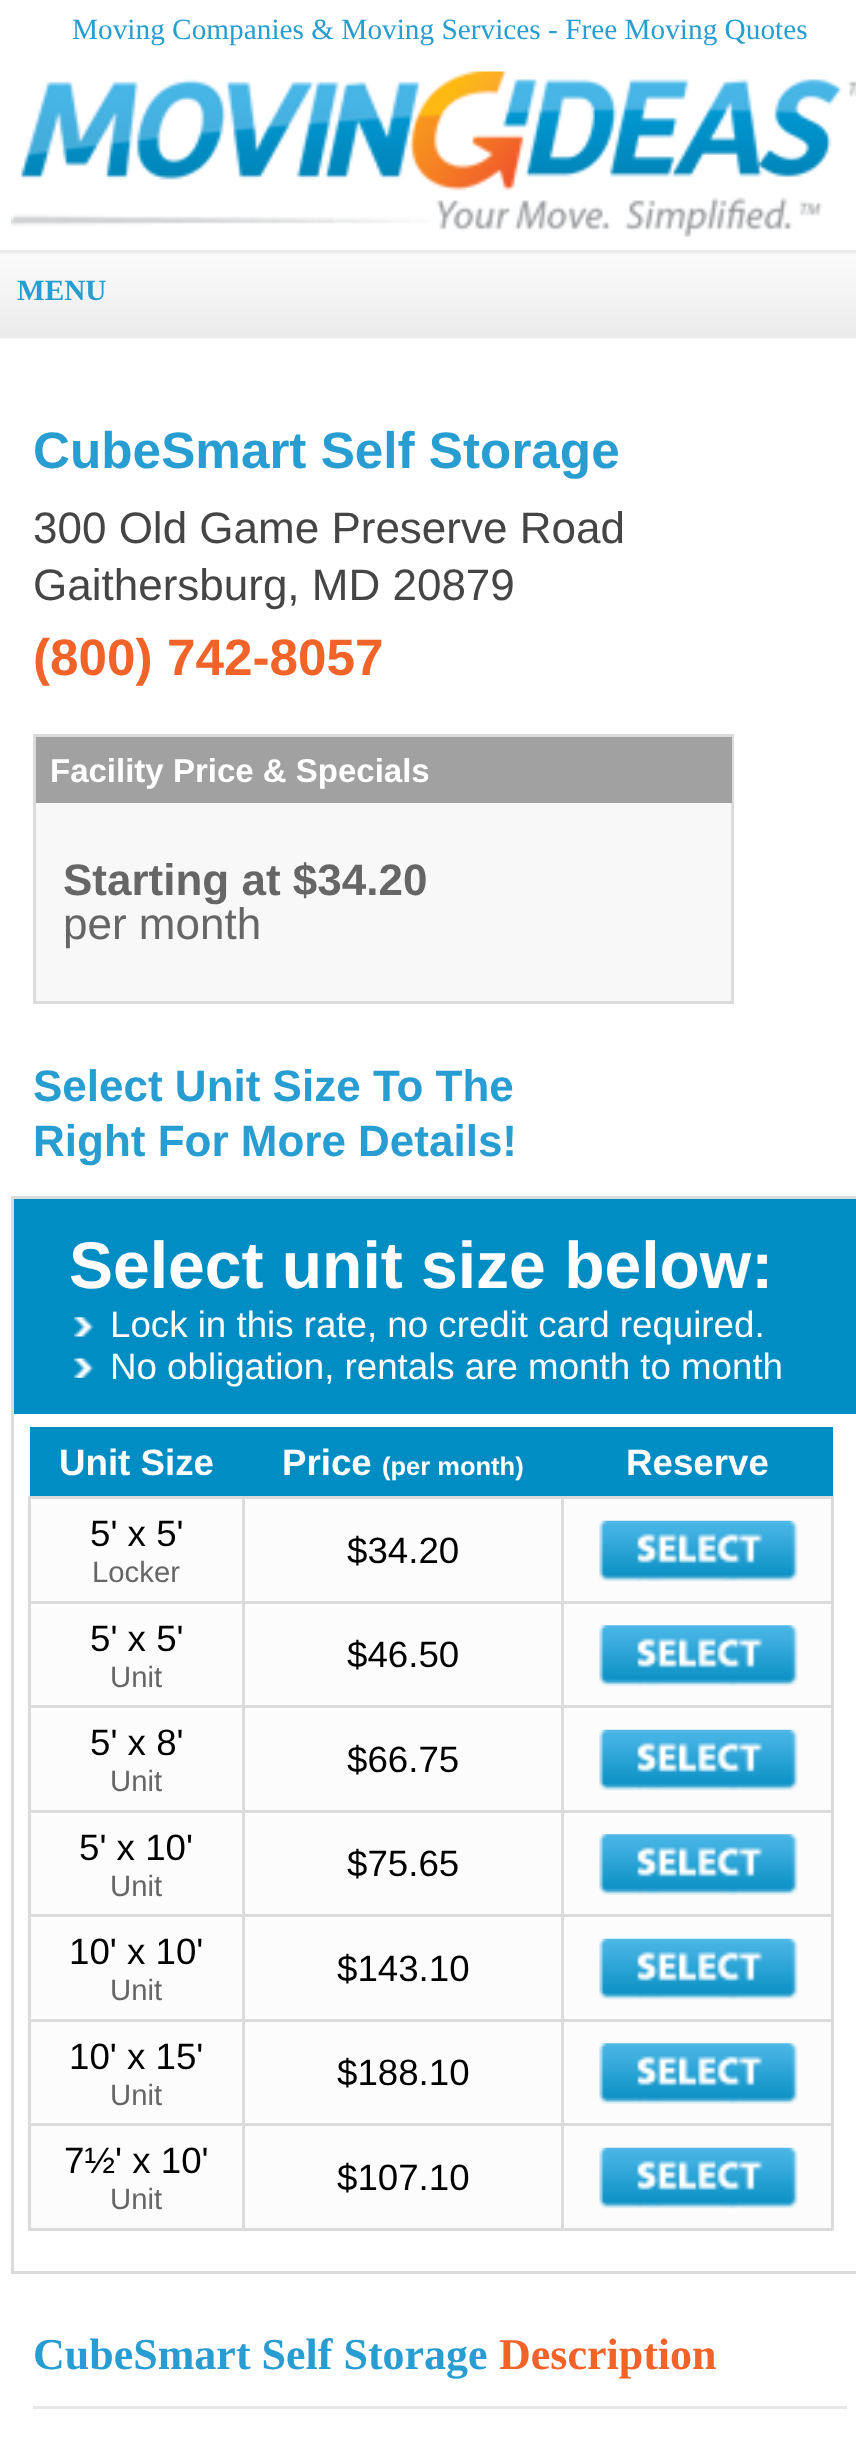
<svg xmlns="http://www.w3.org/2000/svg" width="856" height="2455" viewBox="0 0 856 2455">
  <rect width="100%" height="100%" fill="rgb(255,255,255)"/>
  <text x="72" y="39" font-family="Liberation Serif" font-size="29.3" fill="rgb(39,157,209)">Moving Companies &amp; Moving Services - Free Moving Quotes</text>
  <image x="11" y="71" width="845" height="166" href="pic1.png"/>
  <image x="0" y="250" width="856" height="89" href="pic2.png"/>
  <text x="17" y="300" font-family="Liberation Serif" font-size="29.3" font-weight="bold" fill="rgb(39,157,209)">MENU</text>
  <text x="33" y="468" font-family="Liberation Sans" font-size="51.25" font-weight="bold" fill="rgb(39,157,209)">CubeSmart Self Storage</text>
  <g font-family="Liberation Sans" font-size="44" fill="rgb(69,69,69)">
    <text>
      <tspan x="33" y="543">300 Old Game Preserve Road</tspan>
      <tspan x="33" y="600">Gaithersburg, MD 20879</tspan>
    </text>
  </g>
  <text x="33" y="675" font-family="Liberation Sans" font-size="51.25" font-weight="bold" fill="rgb(242,99,41)">(800) 742-8057</text>
  <rect x="36" y="803" width="695" height="198" fill="rgb(248,248,248)"/>
  <rect x="34.5" y="735.5" width="698" height="267" fill="none" stroke="rgb(219,219,219)" stroke-width="3"/>
  <rect x="36" y="737" width="696" height="66" fill="rgb(161,161,161)"/>
  <text x="50" y="782" font-family="Liberation Sans" font-size="33" font-weight="bold" fill="rgb(255,255,255)">Facility Price &amp; Specials</text>
  <text x="63" y="895" font-family="Liberation Sans" font-size="44" font-weight="bold" fill="rgb(102,102,102)">Starting at $34.20</text>
  <text x="63" y="939" font-family="Liberation Sans" font-size="44" fill="rgb(102,102,102)">per month</text>
  <g font-family="Liberation Sans" font-size="44" font-weight="bold" fill="rgb(39,157,209)">
    <text>
      <tspan x="33" y="1101">Select Unit Size To The</tspan>
      <tspan x="33" y="1156">Right For More Details!</tspan>
    </text>
  </g>
  <rect x="12.5" y="1197.5" width="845" height="1075" fill="none" stroke="rgb(219,219,219)" stroke-width="3"/>
  <rect x="14" y="1199" width="842" height="215" fill="rgb(0,141,196)"/>
  <text x="69" y="1288" font-family="Liberation Sans" font-size="66" font-weight="bold" fill="rgb(255,255,255)">Select unit size below:</text>
  <image x="74" y="1317" width="20" height="20" href="pic3.png"/>
  <text x="110" y="1337" font-family="Liberation Sans" font-size="36.7" fill="rgb(255,255,255)">Lock in this rate, no credit card required.</text>
  <image x="74" y="1358" width="20" height="20" href="pic4.png"/>
  <text x="110" y="1379" font-family="Liberation Sans" font-size="36.7" fill="rgb(255,255,255)">No obligation, rentals are month to month</text>
  <rect x="28" y="1427" width="803" height="801" fill="rgb(252,252,252)"/>
  <rect x="30" y="1427" width="803" height="69" fill="rgb(0,141,196)"/>
  <g font-family="Liberation Sans" font-size="36.7" font-weight="bold" fill="rgb(255,255,255)">
    <text x="59" y="1475">Unit Size</text>
    <text x="282" y="1475">Price</text>
  </g>
  <text x="382" y="1475" font-family="Liberation Sans" font-size="25.5" font-weight="bold" fill="rgb(255,255,255)">(per month)</text>
  <text x="626" y="1475" font-family="Liberation Sans" font-size="36.7" font-weight="bold" fill="rgb(255,255,255)">Reserve</text>
  <rect x="561" y="1496" width="272" height="3" fill="rgb(219,219,219)"/>
  <rect x="561" y="1601" width="272" height="3" fill="rgb(219,219,219)"/>
  <rect x="561" y="1705" width="272" height="3" fill="rgb(219,219,219)"/>
  <rect x="561" y="1810" width="272" height="3" fill="rgb(219,219,219)"/>
  <rect x="561" y="1914" width="272" height="3" fill="rgb(219,219,219)"/>
  <rect x="561" y="2019" width="272" height="3" fill="rgb(219,219,219)"/>
  <rect x="561" y="2123" width="272" height="3" fill="rgb(219,219,219)"/>
  <rect x="831" y="2123" width="3" height="107" fill="rgb(219,219,219)"/>
  <rect x="561" y="2228" width="272" height="3" fill="rgb(219,219,219)"/>
  <rect x="561" y="2123" width="3" height="107" fill="rgb(219,219,219)"/>
  <rect x="242" y="2123" width="322" height="3" fill="rgb(219,219,219)"/>
  <rect x="561" y="2019" width="3" height="107" fill="rgb(219,219,219)"/>
  <rect x="242" y="2019" width="322" height="3" fill="rgb(219,219,219)"/>
  <rect x="561" y="1914" width="3" height="107" fill="rgb(219,219,219)"/>
  <rect x="242" y="1914" width="322" height="3" fill="rgb(219,219,219)"/>
  <rect x="561" y="1810" width="3" height="107" fill="rgb(219,219,219)"/>
  <rect x="242" y="1810" width="322" height="3" fill="rgb(219,219,219)"/>
  <rect x="561" y="1705" width="3" height="107" fill="rgb(219,219,219)"/>
  <rect x="242" y="1705" width="322" height="3" fill="rgb(219,219,219)"/>
  <rect x="561" y="1601" width="3" height="107" fill="rgb(219,219,219)"/>
  <rect x="242" y="1601" width="322" height="3" fill="rgb(219,219,219)"/>
  <rect x="561" y="1496" width="3" height="107" fill="rgb(219,219,219)"/>
  <rect x="242" y="1496" width="322" height="3" fill="rgb(219,219,219)"/>
  <rect x="242" y="2228" width="322" height="3" fill="rgb(219,219,219)"/>
  <rect x="242" y="2123" width="3" height="107" fill="rgb(219,219,219)"/>
  <rect x="28" y="2123" width="217" height="3" fill="rgb(219,219,219)"/>
  <rect x="242" y="2019" width="3" height="107" fill="rgb(219,219,219)"/>
  <rect x="28" y="2019" width="217" height="3" fill="rgb(219,219,219)"/>
  <rect x="242" y="1914" width="3" height="107" fill="rgb(219,219,219)"/>
  <rect x="28" y="1914" width="217" height="3" fill="rgb(219,219,219)"/>
  <rect x="242" y="1810" width="3" height="107" fill="rgb(219,219,219)"/>
  <rect x="28" y="1810" width="217" height="3" fill="rgb(219,219,219)"/>
  <rect x="242" y="1705" width="3" height="107" fill="rgb(219,219,219)"/>
  <rect x="28" y="1705" width="217" height="3" fill="rgb(219,219,219)"/>
  <rect x="242" y="1601" width="3" height="107" fill="rgb(219,219,219)"/>
  <rect x="28" y="1601" width="217" height="3" fill="rgb(219,219,219)"/>
  <rect x="242" y="1496" width="3" height="107" fill="rgb(219,219,219)"/>
  <rect x="28" y="1496" width="217" height="3" fill="rgb(219,219,219)"/>
  <rect x="28" y="2228" width="217" height="3" fill="rgb(219,219,219)"/>
  <rect x="28" y="2123" width="3" height="107" fill="rgb(219,219,219)"/>
  <rect x="28" y="2019" width="3" height="107" fill="rgb(219,219,219)"/>
  <rect x="28" y="1914" width="3" height="107" fill="rgb(219,219,219)"/>
  <rect x="28" y="1810" width="3" height="107" fill="rgb(219,219,219)"/>
  <rect x="28" y="1705" width="3" height="107" fill="rgb(219,219,219)"/>
  <rect x="28" y="1601" width="3" height="107" fill="rgb(219,219,219)"/>
  <rect x="28" y="1496" width="3" height="107" fill="rgb(219,219,219)"/>
  <text x="90" y="1546" font-family="Liberation Sans" font-size="36.7" fill="rgb(0,0,0)">5' x 5'</text>
  <text x="92" y="1582" font-family="Liberation Sans" font-size="29.3" fill="rgb(102,102,102)">Locker</text>
  <text x="347" y="1563" font-family="Liberation Sans" font-size="36.7" fill="rgb(0,0,0)">$34.20</text>
  <rect x="831" y="2019" width="3" height="107" fill="rgb(219,219,219)"/>
  <rect x="831" y="1914" width="3" height="107" fill="rgb(219,219,219)"/>
  <rect x="831" y="1810" width="3" height="107" fill="rgb(219,219,219)"/>
  <rect x="831" y="1705" width="3" height="107" fill="rgb(219,219,219)"/>
  <rect x="831" y="1601" width="3" height="107" fill="rgb(219,219,219)"/>
  <rect x="831" y="1496" width="3" height="107" fill="rgb(219,219,219)"/>
  <image x="599" y="1520" width="199" height="62" href="pic5.png"/>
  <text x="90" y="1651" font-family="Liberation Sans" font-size="36.7" fill="rgb(0,0,0)">5' x 5'</text>
  <text x="110" y="1687" font-family="Liberation Sans" font-size="29.3" fill="rgb(102,102,102)">Unit</text>
  <text x="347" y="1667" font-family="Liberation Sans" font-size="36.7" fill="rgb(0,0,0)">$46.50</text>
  <image x="599" y="1625" width="199" height="61" href="pic6.png"/>
  <text x="90" y="1755" font-family="Liberation Sans" font-size="36.7" fill="rgb(0,0,0)">5' x 8'</text>
  <text x="110" y="1791" font-family="Liberation Sans" font-size="29.3" fill="rgb(102,102,102)">Unit</text>
  <text x="347" y="1772" font-family="Liberation Sans" font-size="36.7" fill="rgb(0,0,0)">$66.75</text>
  <image x="599" y="1729" width="199" height="62" href="pic5.png"/>
  <text x="79" y="1860" font-family="Liberation Sans" font-size="36.7" fill="rgb(0,0,0)">5' x 10'</text>
  <text x="110" y="1896" font-family="Liberation Sans" font-size="29.3" fill="rgb(102,102,102)">Unit</text>
  <text x="347" y="1876" font-family="Liberation Sans" font-size="36.7" fill="rgb(0,0,0)">$75.65</text>
  <image x="599" y="1834" width="199" height="61" href="pic6.png"/>
  <text x="69" y="1964" font-family="Liberation Sans" font-size="36.7" fill="rgb(0,0,0)">10' x 10'</text>
  <text x="110" y="2000" font-family="Liberation Sans" font-size="29.3" fill="rgb(102,102,102)">Unit</text>
  <text x="337" y="1981" font-family="Liberation Sans" font-size="36.7" fill="rgb(0,0,0)">$143.10</text>
  <image x="599" y="1938" width="199" height="62" href="pic7.png"/>
  <text x="69" y="2069" font-family="Liberation Sans" font-size="36.7" fill="rgb(0,0,0)">10' x 15'</text>
  <text x="110" y="2105" font-family="Liberation Sans" font-size="29.3" fill="rgb(102,102,102)">Unit</text>
  <text x="337" y="2085" font-family="Liberation Sans" font-size="36.7" fill="rgb(0,0,0)">$188.10</text>
  <image x="599" y="2043" width="199" height="61" href="pic6.png"/>
  <text x="64" y="2173" font-family="Liberation Sans" font-size="36.7" fill="rgb(0,0,0)">7½' x 10'</text>
  <text x="110" y="2209" font-family="Liberation Sans" font-size="29.3" fill="rgb(102,102,102)">Unit</text>
  <text x="337" y="2190" font-family="Liberation Sans" font-size="36.7" fill="rgb(0,0,0)">$107.10</text>
  <image x="599" y="2147" width="199" height="62" href="pic5.png"/>
  <rect x="33" y="2406" width="814" height="3" fill="rgb(231,231,231)"/>
  <text x="33" y="2369" font-family="Liberation Serif" font-size="44" font-weight="bold" fill="rgb(39,157,209)">CubeSmart Self Storage</text>
  <text x="499" y="2369" font-family="Liberation Serif" font-size="44" font-weight="bold" fill="rgb(242,99,41)">Description</text>
</svg>
